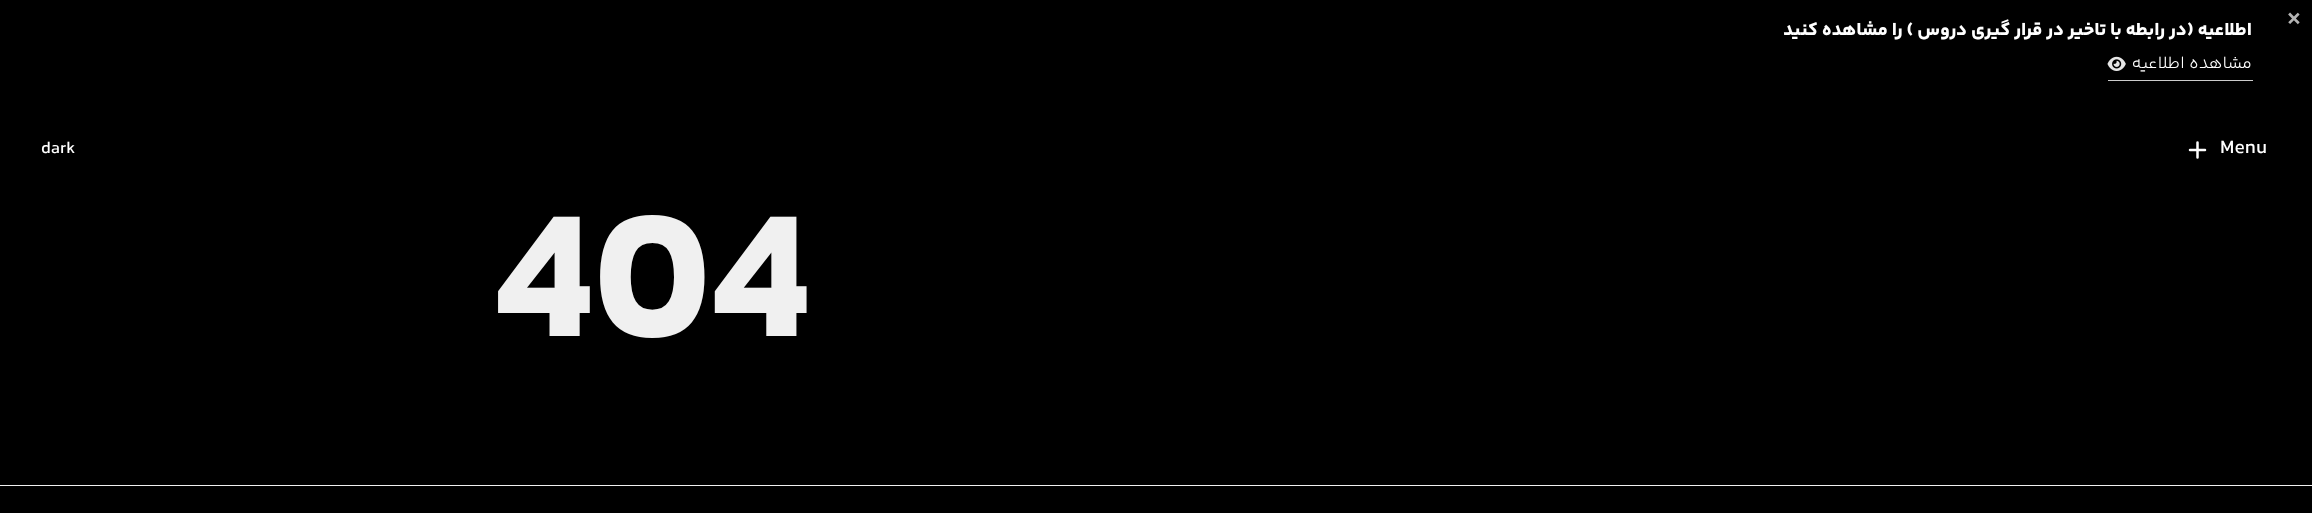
<svg xmlns="http://www.w3.org/2000/svg" width="2312" height="513" viewBox="0 0 2312 513">
  <rect width="100%" height="100%" fill="rgb(0,0,0)"/>
  <text x="2286" y="24" font-family="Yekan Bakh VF" font-size="28" fill="rgb(179,179,179)">×</text>
  <text x="2252" y="35" font-family="Yekan Bakh VF" font-size="18.75" font-weight="bold" direction="rtl" fill="rgb(255,255,255)">اطلاعیه (در رابطه با تاخیر در قرار گیری دروس ) را مشاهده کنید</text>
  <text x="2252" y="68" font-family="Yekan Bakh VF" font-size="17.5" font-weight="200" direction="rtl" fill="rgb(255,255,255)">مشاهده اطلاعیه</text>
  <image x="2107" y="56" width="19" height="15" href="pic1.png"/>
  <rect x="2108" y="80" width="145" height="1" fill="rgb(204,204,204)"/>
  <text x="2220" y="153" font-family="Yekan Bakh VF" font-size="20" fill="rgb(255,255,255)">Menu</text>
  <path d="M2197.5 142.5V157.5M2190 150H2205" fill="none" stroke="rgb(255,255,255)" stroke-width="2.5" stroke-linecap="round"/>
  <text x="41" y="153" font-family="Yekan Bakh VF" font-size="17.5" fill="rgb(255,255,255)">dark</text>
  <text x="494" y="336" font-family="Yekan Bakh VF" font-size="195" font-weight="bold" letter-spacing="-1.5" fill="rgb(240,240,240)">404</text>
  <rect x="0" y="485" width="2312" height="1" fill="rgb(240,240,240)"/>
</svg>
